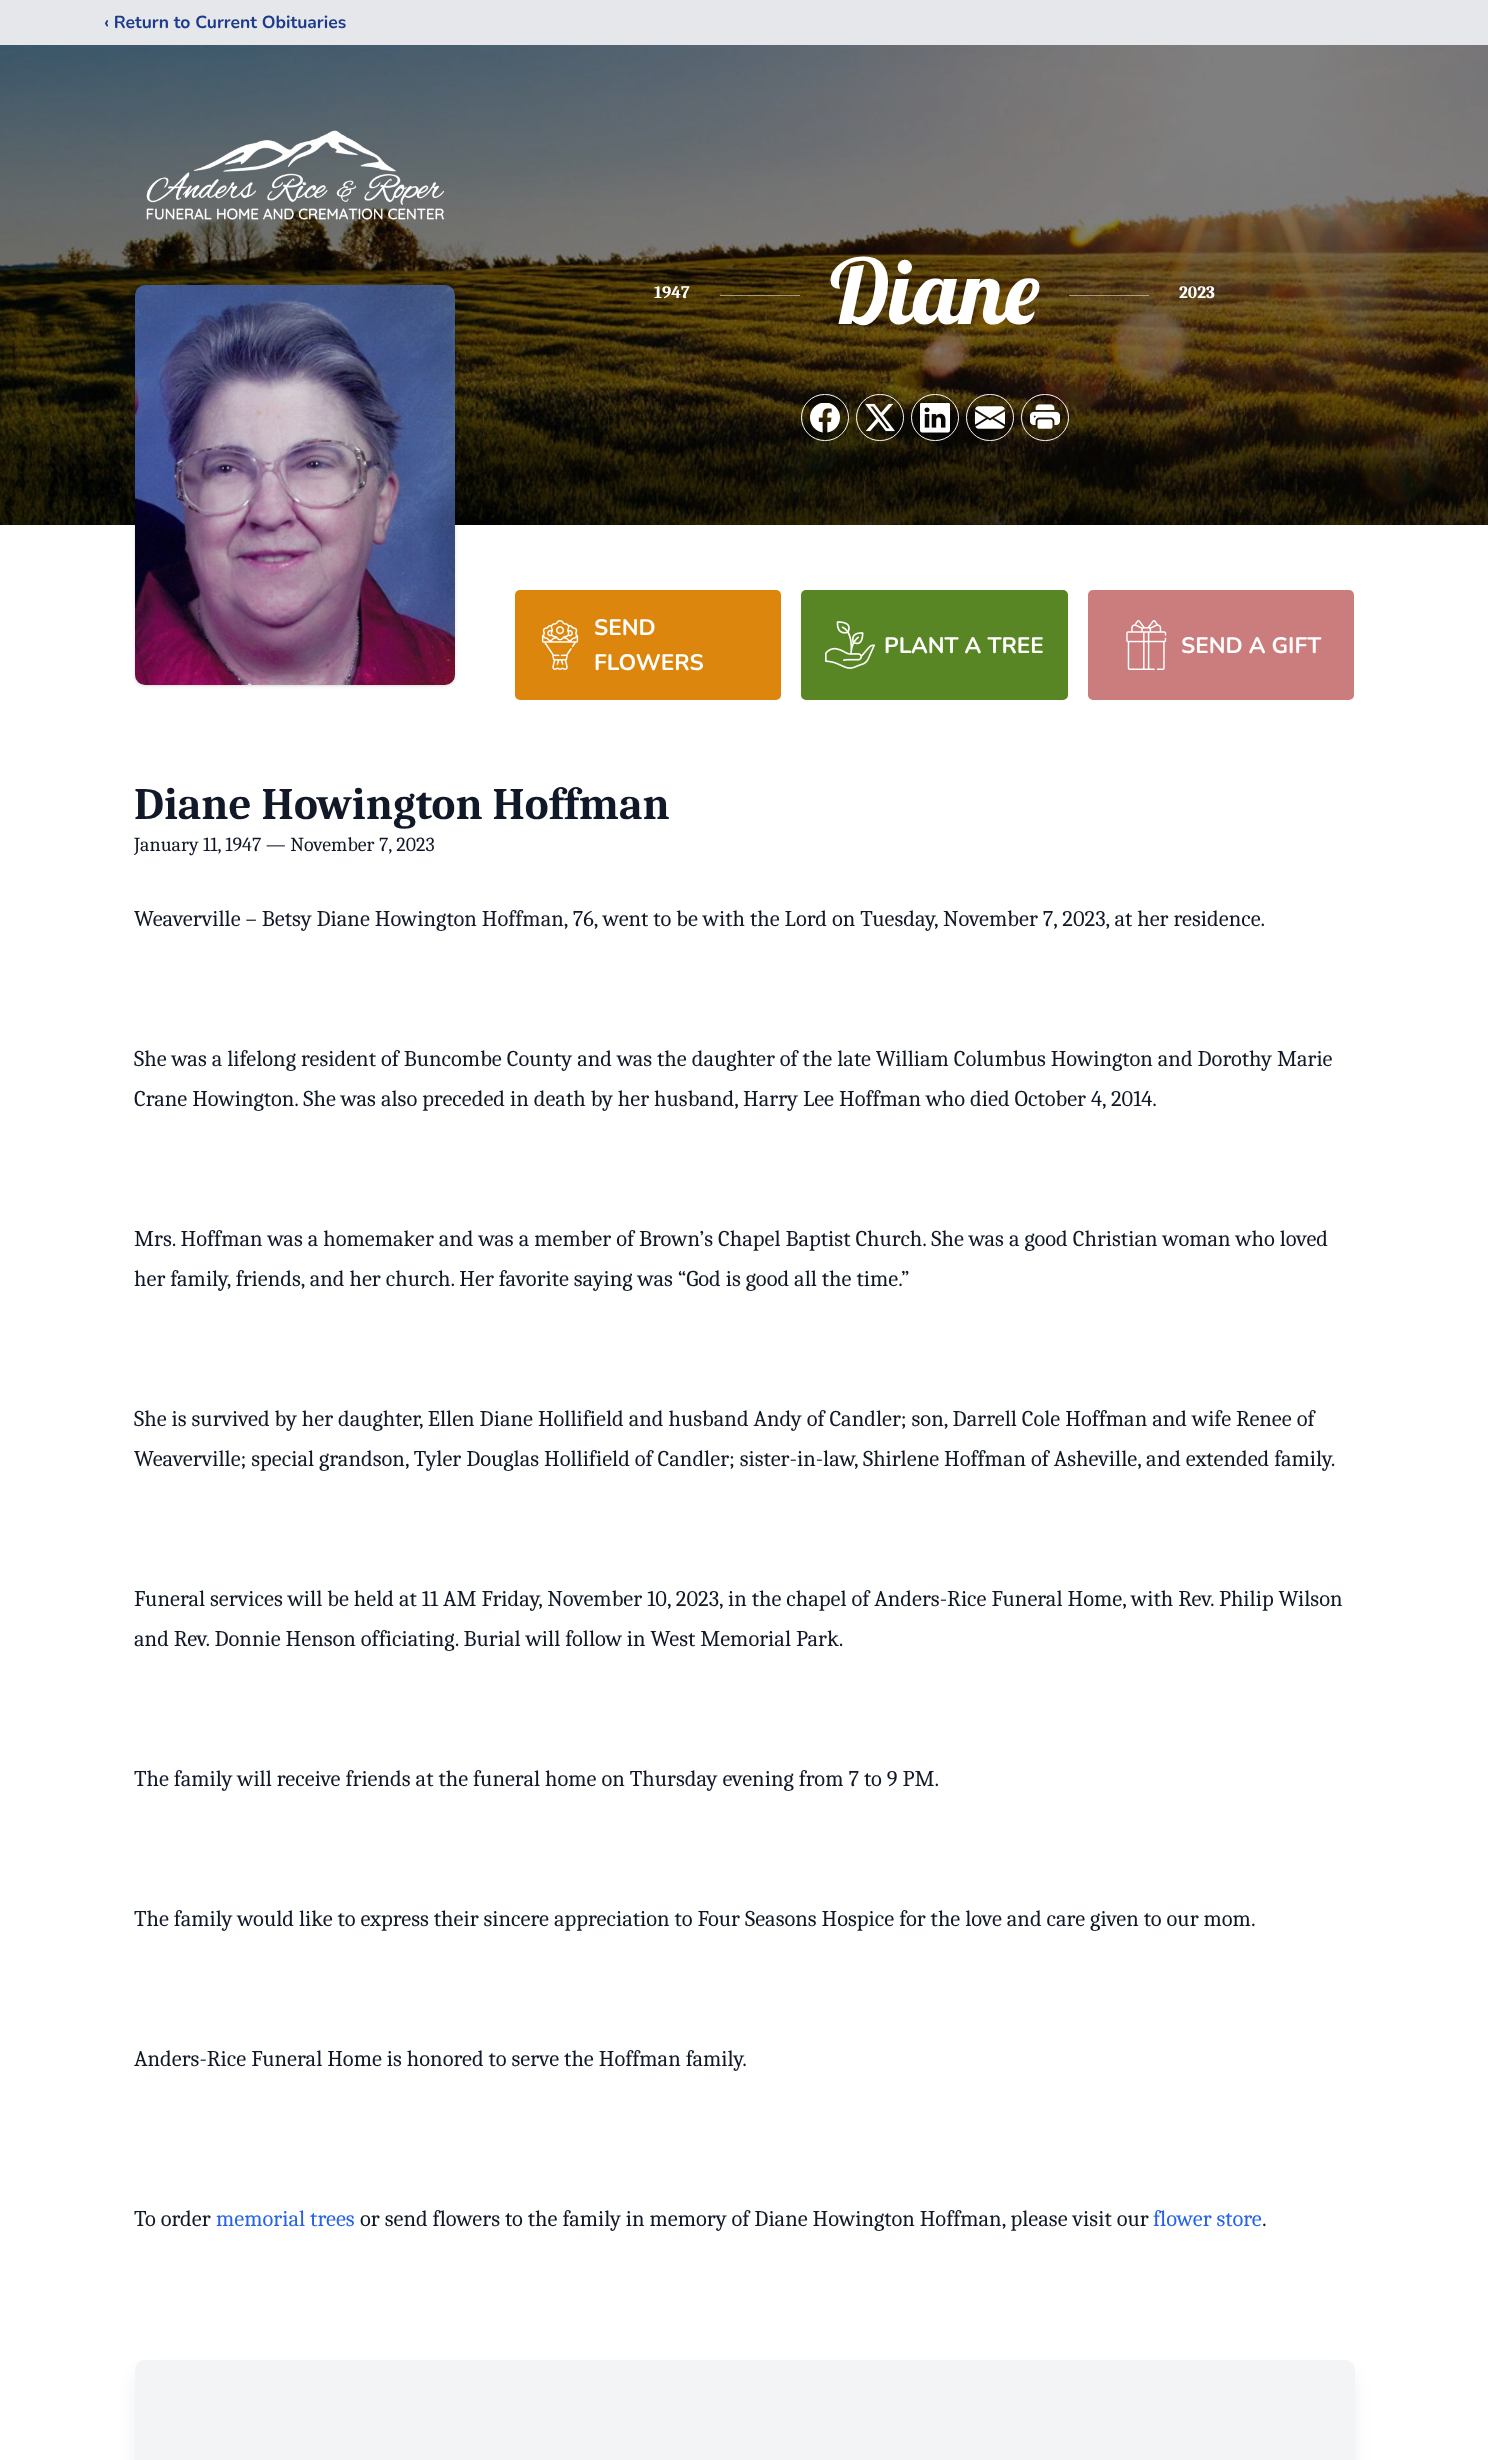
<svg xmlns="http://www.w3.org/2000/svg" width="1488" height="2460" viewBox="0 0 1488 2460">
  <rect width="100%" height="100%" fill="rgb(255,255,255)"/>
  <rect x="0" y="0" width="1488" height="45" fill="rgb(229,231,235)"/>
  <text x="104" y="28" font-family="Nunito" font-size="17.5" font-weight="bold" fill="rgb(30,58,138)">‹ Return to Current Obituaries</text>
  <image x="0" y="45" width="1488" height="480" href="pic1.png"/>
  <image x="146" y="130" width="299" height="90" href="pic2.png"/>
  <rect x="136" y="288" width="318" height="397" rx="9" fill="rgba(0,0,0,0.1)" filter="blur(1px)"/>
  <rect x="135" y="286" width="320" height="400" rx="10" fill="rgba(0,0,0,0.1)" filter="blur(2px)"/>
  <image x="135" y="285" width="320" height="400" href="pic3.png"/>
  <text x="654" y="298" font-family="Caladea" font-size="17.5" font-weight="bold" fill="rgb(255,255,255)">1947</text>
  <rect x="720" y="295" width="80" height="1" fill="rgba(255,255,255,0.5)"/>
  <text x="830" y="324" font-family="Lobster" font-size="90" fill="rgb(255,255,255)">Diane</text>
  <rect x="1069" y="295" width="80" height="1" fill="rgba(255,255,255,0.5)"/>
  <text x="1179" y="298" font-family="Caladea" font-size="17.5" font-weight="bold" fill="rgb(255,255,255)">2023</text>
  <rect x="801.5" y="394.5" width="47" height="46" rx="23" fill="none" stroke="rgb(255,255,255)"/>
  <circle cx="825.5" cy="417.5" r="22.5" fill="rgba(0,0,0,0.2)"/>
  <image x="810" y="403" width="30" height="30" href="pic4.png"/>
  <rect x="856.5" y="394.5" width="47" height="46" rx="23" fill="none" stroke="rgb(255,255,255)"/>
  <circle cx="880.5" cy="417.5" r="22.5" fill="rgba(0,0,0,0.2)"/>
  <image x="865" y="403" width="30" height="29" href="pic5.png"/>
  <rect x="911.5" y="394.5" width="47" height="46" rx="23" fill="none" stroke="rgb(255,255,255)"/>
  <circle cx="935.5" cy="417.5" r="22.5" fill="rgba(0,0,0,0.2)"/>
  <image x="920" y="403" width="30" height="30" href="pic6.png"/>
  <rect x="966.5" y="394.5" width="47" height="46" rx="23" fill="none" stroke="rgb(255,255,255)"/>
  <circle cx="990.5" cy="417.5" r="22.5" fill="rgba(0,0,0,0.2)"/>
  <image x="975" y="406" width="30" height="23" href="pic7.png"/>
  <rect x="1021.5" y="394.5" width="47" height="46" rx="23" fill="none" stroke="rgb(255,255,255)"/>
  <circle cx="1045.5" cy="417.5" r="22.5" fill="rgba(0,0,0,0.2)"/>
  <image x="1030" y="404" width="30" height="25" href="pic8.png"/>
  <rect x="515" y="590" width="266" height="110" rx="5" fill="rgb(220,134,13)"/>
  <image x="541" y="620" width="38" height="50" href="pic9.png"/>
  <g font-family="Nunito" font-size="22.5" font-weight="bold" fill="rgb(255,255,255)">
    <text>
      <tspan x="594" y="635">SEND</tspan>
      <tspan x="594" y="670">FLOWERS</tspan>
    </text>
  </g>
  <rect x="801" y="590" width="267" height="110" rx="5" fill="rgb(88,134,36)"/>
  <image x="825" y="621" width="50" height="48" href="pic10.png"/>
  <text x="884" y="653" font-family="Nunito" font-size="22.5" font-weight="bold" fill="rgb(255,255,255)">PLANT A TREE</text>
  <rect x="1088" y="590" width="266" height="110" rx="5" fill="rgb(203,124,124)"/>
  <image x="1126" y="620" width="41" height="50" href="pic11.png"/>
  <text x="1181" y="653" font-family="Nunito" font-size="22.5" font-weight="bold" fill="rgb(255,255,255)">SEND A GIFT</text>
  <text x="134" y="819" font-family="Caladea" font-size="45" font-weight="bold" fill="rgb(17,24,39)">Diane Howington Hoffman</text>
  <text x="134" y="851" font-family="Caladea" font-size="20" fill="rgb(17,24,39)">January 11, 1947 — November 7, 2023</text>
  <g font-family="Caladea" font-size="22.5" fill="rgb(17,24,39)">
    <text x="134" y="926">Weaverville – Betsy Diane Howington Hoffman, 76, went to be with the Lord on Tuesday, November 7, 2023, at her residence.</text>
    <text>
      <tspan x="134" y="1066">She was a lifelong resident of Buncombe County and was the daughter of the late William Columbus Howington and Dorothy Marie</tspan>
      <tspan x="134" y="1106">Crane Howington. She was also preceded in death by her husband, Harry Lee Hoffman who died October 4, 2014.</tspan>
    </text>
    <text>
      <tspan x="134" y="1246">Mrs. Hoffman was a homemaker and was a member of Brown’s Chapel Baptist Church. She was a good Christian woman who loved</tspan>
      <tspan x="134" y="1286">her family, friends, and her church. Her favorite saying was “God is good all the time.”</tspan>
    </text>
    <text>
      <tspan x="134" y="1426">She is survived by her daughter, Ellen Diane Hollifield and husband Andy of Candler; son, Darrell Cole Hoffman and wife Renee of</tspan>
      <tspan x="134" y="1466">Weaverville; special grandson, Tyler Douglas Hollifield of Candler; sister-in-law, Shirlene Hoffman of Asheville, and extended family.</tspan>
    </text>
    <text>
      <tspan x="134" y="1606">Funeral services will be held at 11 AM Friday, November 10, 2023, in the chapel of Anders-Rice Funeral Home, with Rev. Philip Wilson</tspan>
      <tspan x="134" y="1646">and Rev. Donnie Henson officiating. Burial will follow in West Memorial Park.</tspan>
    </text>
    <text x="134" y="1786">The family will receive friends at the funeral home on Thursday evening from 7 to 9 PM.</text>
    <text x="134" y="1926">The family would like to express their sincere appreciation to Four Seasons Hospice for the love and care given to our mom.</text>
    <text x="134" y="2066">Anders-Rice Funeral Home is honored to serve the Hoffman family.</text>
    <text x="134" y="2226">To order</text>
  </g>
  <text x="216" y="2226" font-family="Caladea" font-size="22.5" fill="rgb(37,99,235)">memorial trees</text>
  <text x="360" y="2226" font-family="Caladea" font-size="22.5" fill="rgb(17,24,39)">or send flowers to the family in memory of Diane Howington Hoffman, please visit our</text>
  <text x="1153" y="2226" font-family="Caladea" font-size="22.5" fill="rgb(37,99,235)">flower store</text>
  <text x="1262" y="2226" font-family="Caladea" font-size="22.5" fill="rgb(17,24,39)">.</text>
  <rect x="139" y="2376" width="1212" height="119" rx="6" fill="rgba(0,0,0,0.1)" filter="blur(9.5px)"/>
  <rect x="135" y="2360" width="1220" height="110" rx="10" fill="rgb(243,244,246)"/>
</svg>
